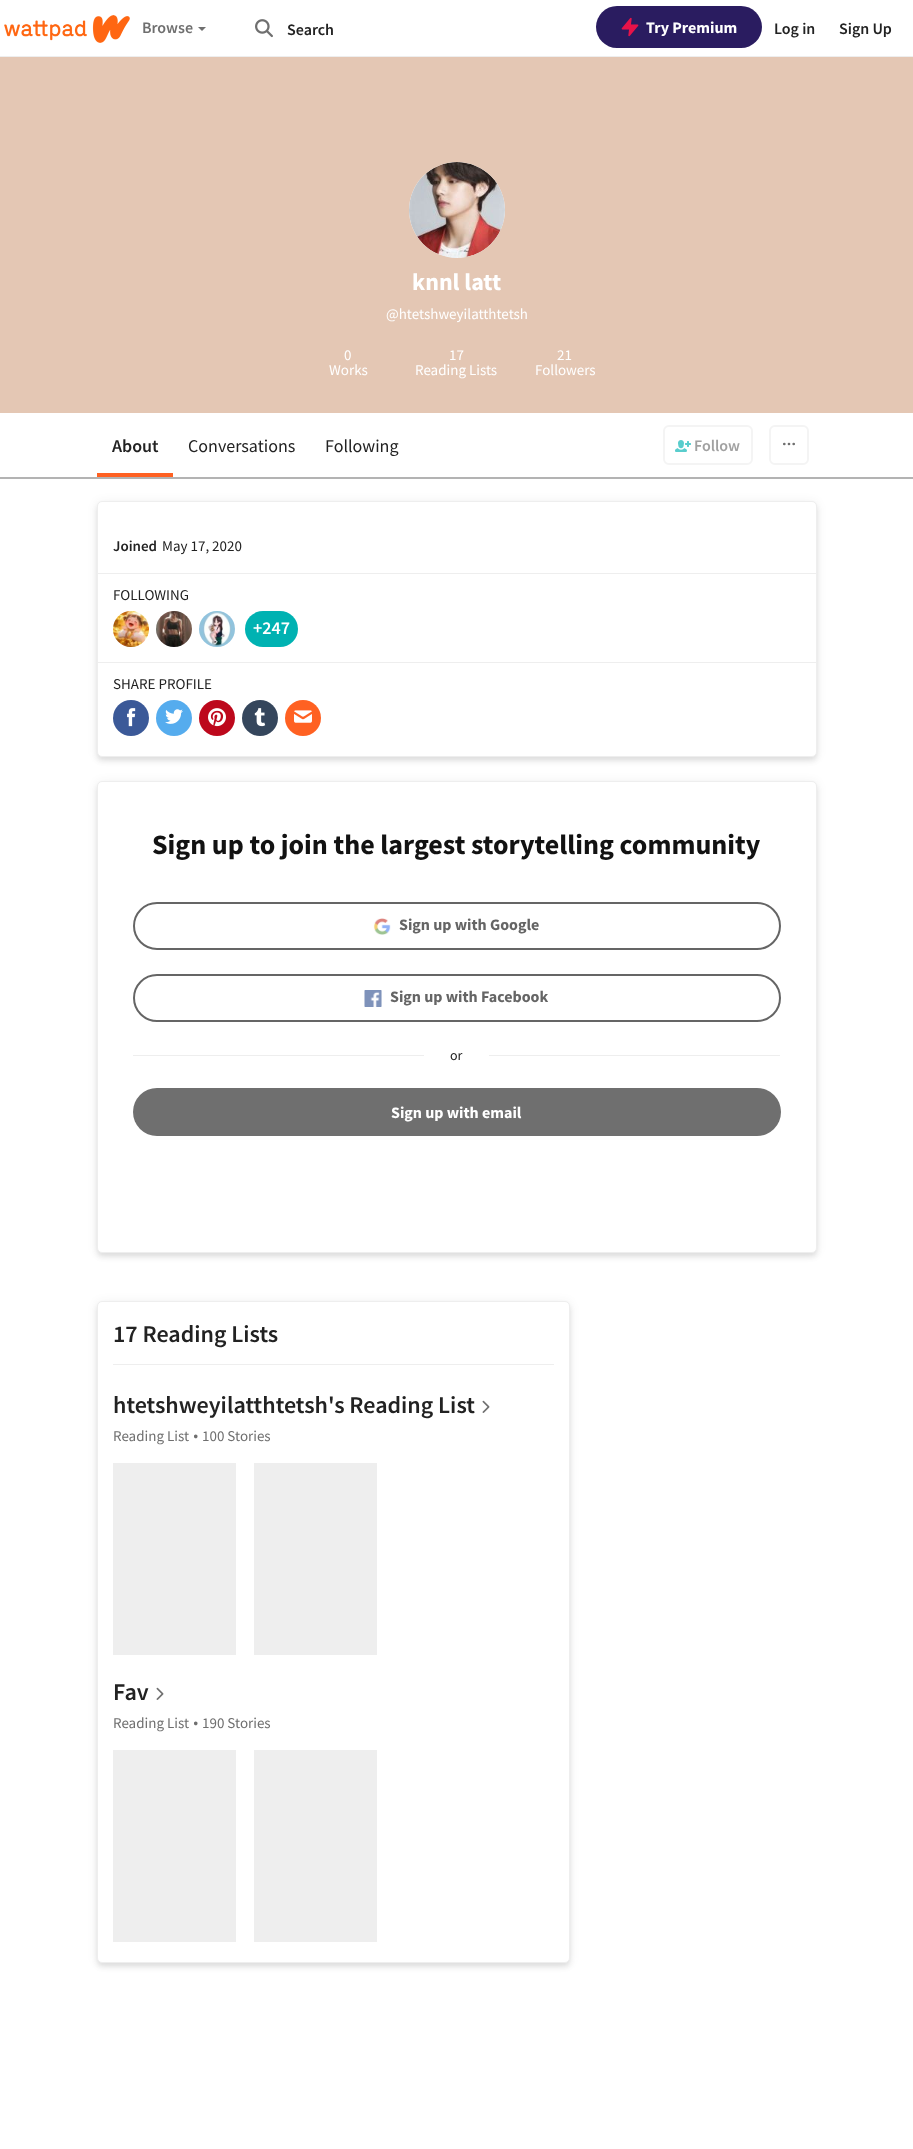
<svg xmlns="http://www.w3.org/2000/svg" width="913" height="2149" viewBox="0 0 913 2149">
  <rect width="100%" height="100%" fill="rgb(255,255,255)"/>
  <rect x="0" y="56" width="913" height="1" fill="rgb(238,238,238)"/>
  <image x="4" y="15" width="126" height="28" href="pic1.png"/>
  <text x="142" y="33" font-family="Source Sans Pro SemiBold" font-size="16" font-weight="600" fill="rgb(111,111,111)">Browse</text>
  <path d="M198 27H206L202 31Z" fill="rgb(111,111,111)"/>
  <image x="255" y="19" width="18" height="19" href="pic2.png"/>
  <text x="287" y="35" font-family="Source Sans Pro SemiBold" font-size="16" font-weight="600" fill="rgb(34,34,34)">Search</text>
  <rect x="596" y="6" width="166" height="42" rx="21" fill="rgb(42,28,96)"/>
  <image x="621" y="17" width="18" height="20" href="pic3.png"/>
  <text x="646" y="33" font-family="Source Sans Pro" font-size="16" font-weight="bold" fill="rgb(255,255,255)">Try Premium</text>
  <g font-family="Source Sans Pro SemiBold" font-size="16" font-weight="600" fill="rgb(34,34,34)">
    <text x="774" y="34">Log in</text>
    <text x="839" y="34">Sign Up</text>
  </g>
  <rect x="0" y="57" width="913" height="356" fill="rgb(228,199,180)"/>
  <circle cx="457" cy="210" r="48" fill="rgb(238,238,238)"/>
  <image x="409" y="162" width="96" height="96" href="pic4.png"/>
  <text x="412" y="290" font-family="Source Sans Pro" font-size="24" font-weight="bold" fill="rgb(255,255,255)">knnl latt</text>
  <g font-family="Source Sans Pro" font-size="15" fill="rgb(255,255,255)">
    <text x="386" y="319">@htetshweyilatthtetsh</text>
    <text x="344" y="360">0</text>
    <text x="329" y="375">Works</text>
    <text x="449" y="360">17</text>
    <text x="415" y="375">Reading Lists</text>
    <text x="557" y="360">21</text>
    <text x="535" y="375">Followers</text>
  </g>
  <rect x="0" y="477" width="913" height="2" fill="rgb(179,179,179)"/>
  <rect x="97" y="473" width="76" height="4" fill="rgb(255,97,34)"/>
  <text x="112" y="452" font-family="Source Sans Pro SemiBold" font-size="18" font-weight="600" fill="rgb(34,34,34)">About</text>
  <g font-family="Source Sans Pro" font-size="18" fill="rgb(34,34,34)">
    <text x="188" y="452">Conversations</text>
    <text x="325" y="452">Following</text>
  </g>
  <rect x="664" y="426" width="88" height="38" rx="5" fill="none" stroke="rgb(244,244,244)" stroke-width="2"/>
  <image x="675" y="440" width="16" height="12" href="pic5.png"/>
  <text x="694" y="451" font-family="Source Sans Pro SemiBold" font-size="16" font-weight="600" fill="rgb(161,161,161)">Follow</text>
  <rect x="770" y="426" width="38" height="38" rx="5" fill="none" stroke="rgb(244,244,244)" stroke-width="2"/>
  <circle cx="784.3" cy="444" r="0.7" fill="none" stroke="rgb(111,111,111)" stroke-width="1.3"/>
  <circle cx="789" cy="444" r="0.7" fill="none" stroke="rgb(111,111,111)" stroke-width="1.3"/>
  <circle cx="793.7" cy="444" r="0.7" fill="none" stroke="rgb(111,111,111)" stroke-width="1.3"/>
  <rect x="97" y="505" width="720" height="256" rx="5" fill="rgba(34,34,34,0.1)" filter="blur(2.5px)"/>
  <rect x="97" y="502" width="720" height="256" rx="5" fill="rgba(34,34,34,0.08)" filter="blur(5px)"/>
  <rect x="97.5" y="501.5" width="719" height="255" rx="4.5" fill="rgb(255,255,255)" stroke="rgb(238,238,238)"/>
  <text x="113" y="551" font-family="Source Sans Pro SemiBold" font-size="15" font-weight="600" fill="rgb(34,34,34)">Joined</text>
  <text x="162" y="551" font-family="Source Sans Pro" font-size="15" fill="rgb(34,34,34)">May 17, 2020</text>
  <rect x="98" y="573" width="718" height="1" fill="rgb(238,238,238)"/>
  <text x="113" y="600" font-family="Source Sans Pro" font-size="15" fill="rgb(34,34,34)">FOLLOWING</text>
  <image x="113" y="611" width="36" height="36" href="pic6.png"/>
  <image x="156" y="611" width="36" height="36" href="pic7.png"/>
  <image x="199" y="611" width="36" height="36" href="pic8.png"/>
  <rect x="245" y="611" width="53" height="36" rx="18" fill="rgb(0,178,178)"/>
  <text x="253" y="634" font-family="Source Sans Pro SemiBold" font-size="18" font-weight="600" fill="rgb(255,255,255)">+247</text>
  <rect x="98" y="662" width="718" height="1" fill="rgb(238,238,238)"/>
  <text x="113" y="689" font-family="Source Sans Pro" font-size="15" fill="rgb(34,34,34)">SHARE PROFILE</text>
  <circle cx="131" cy="718" r="18" fill="rgb(59,89,152)"/>
  <image x="127" y="708" width="9" height="19" href="pic9.png"/>
  <circle cx="174" cy="718" r="18" fill="rgb(85,172,238)"/>
  <image x="165" y="709" width="18" height="15" href="pic10.png"/>
  <circle cx="217" cy="718" r="18" fill="rgb(189,8,28)"/>
  <image x="208" y="708" width="18" height="19" href="pic11.png"/>
  <circle cx="260" cy="718" r="18" fill="rgb(53,70,92)"/>
  <image x="254" y="708" width="12" height="19" href="pic12.png"/>
  <circle cx="303" cy="718" r="18" fill="rgb(255,97,34)"/>
  <image x="294" y="710" width="18" height="13" href="pic13.png"/>
  <rect x="97" y="785" width="720" height="472" rx="5" fill="rgba(34,34,34,0.1)" filter="blur(2.5px)"/>
  <rect x="97" y="782" width="720" height="472" rx="5" fill="rgba(34,34,34,0.08)" filter="blur(5px)"/>
  <rect x="97.5" y="781.5" width="719" height="471" rx="4.5" fill="rgb(255,255,255)" stroke="rgb(238,238,238)"/>
  <text x="152" y="854" font-family="Source Sans Pro" font-size="28" font-weight="bold" fill="rgb(18,18,18)">Sign up to join the largest storytelling community</text>
  <rect x="134" y="903" width="646" height="46" rx="23" fill="none" stroke="rgb(101,101,101)" stroke-width="2"/>
  <image x="373" y="918" width="18" height="17" href="pic14.png"/>
  <text x="399" y="930" font-family="Source Sans Pro" font-size="16" font-weight="bold" fill="rgb(101,101,101)">Sign up with Google</text>
  <rect x="134" y="975" width="646" height="46" rx="23" fill="none" stroke="rgb(101,101,101)" stroke-width="2"/>
  <image x="364" y="990" width="18" height="17" href="pic15.png"/>
  <text x="390" y="1002" font-family="Source Sans Pro" font-size="16" font-weight="bold" fill="rgb(101,101,101)">Sign up with Facebook</text>
  <rect x="133" y="1055" width="291" height="1" fill="rgb(238,238,238)"/>
  <text x="450" y="1060" font-family="Source Sans Pro" font-size="14" fill="rgb(34,34,34)">or</text>
  <rect x="489" y="1055" width="291" height="1" fill="rgb(238,238,238)"/>
  <rect x="133" y="1088" width="648" height="48" rx="24" fill="rgb(111,111,111)"/>
  <text x="391" y="1118" font-family="Source Sans Pro" font-size="16" font-weight="bold" fill="rgb(255,255,255)">Sign up with email</text>
  <rect x="97" y="1305" width="473" height="662" rx="5" fill="rgba(34,34,34,0.1)" filter="blur(2.5px)"/>
  <rect x="97" y="1302" width="473" height="662" rx="5" fill="rgba(34,34,34,0.08)" filter="blur(5px)"/>
  <rect x="97.5" y="1301.5" width="472" height="661" rx="4.5" fill="rgb(255,255,255)" stroke="rgb(238,238,238)"/>
  <text x="113" y="1342" font-family="Source Sans Pro SemiBold" font-size="24" font-weight="600" fill="rgb(34,34,34)">17 Reading Lists</text>
  <rect x="113" y="1364" width="441" height="1" fill="rgb(238,238,238)"/>
  <text x="113" y="1413" font-family="Source Sans Pro SemiBold" font-size="24" font-weight="600" fill="rgb(34,34,34)">htetshweyilatthtetsh's Reading List</text>
  <image x="482" y="1400" width="8" height="13" href="pic16.png"/>
  <text x="113" y="1441" font-family="Source Sans Pro" font-size="15" fill="rgb(111,111,111)">Reading List</text>
  <text x="192" y="1446" font-family="Source Sans Pro" font-size="30" fill="rgb(111,111,111)">·</text>
  <text x="202" y="1441" font-family="Source Sans Pro" font-size="15" fill="rgb(111,111,111)">100 Stories</text>
  <rect x="113" y="1463" width="123" height="192" fill="rgb(238,238,238)"/>
  <rect x="254" y="1463" width="123" height="192" fill="rgb(238,238,238)"/>
  <text x="113" y="1700" font-family="Source Sans Pro SemiBold" font-size="24" font-weight="600" fill="rgb(34,34,34)">Fav</text>
  <image x="156" y="1687" width="8" height="13" href="pic16.png"/>
  <text x="113" y="1728" font-family="Source Sans Pro" font-size="15" fill="rgb(111,111,111)">Reading List</text>
  <text x="192" y="1733" font-family="Source Sans Pro" font-size="30" fill="rgb(111,111,111)">·</text>
  <text x="202" y="1728" font-family="Source Sans Pro" font-size="15" fill="rgb(111,111,111)">190 Stories</text>
  <rect x="113" y="1750" width="123" height="192" fill="rgb(238,238,238)"/>
  <rect x="254" y="1750" width="123" height="192" fill="rgb(238,238,238)"/>
</svg>
